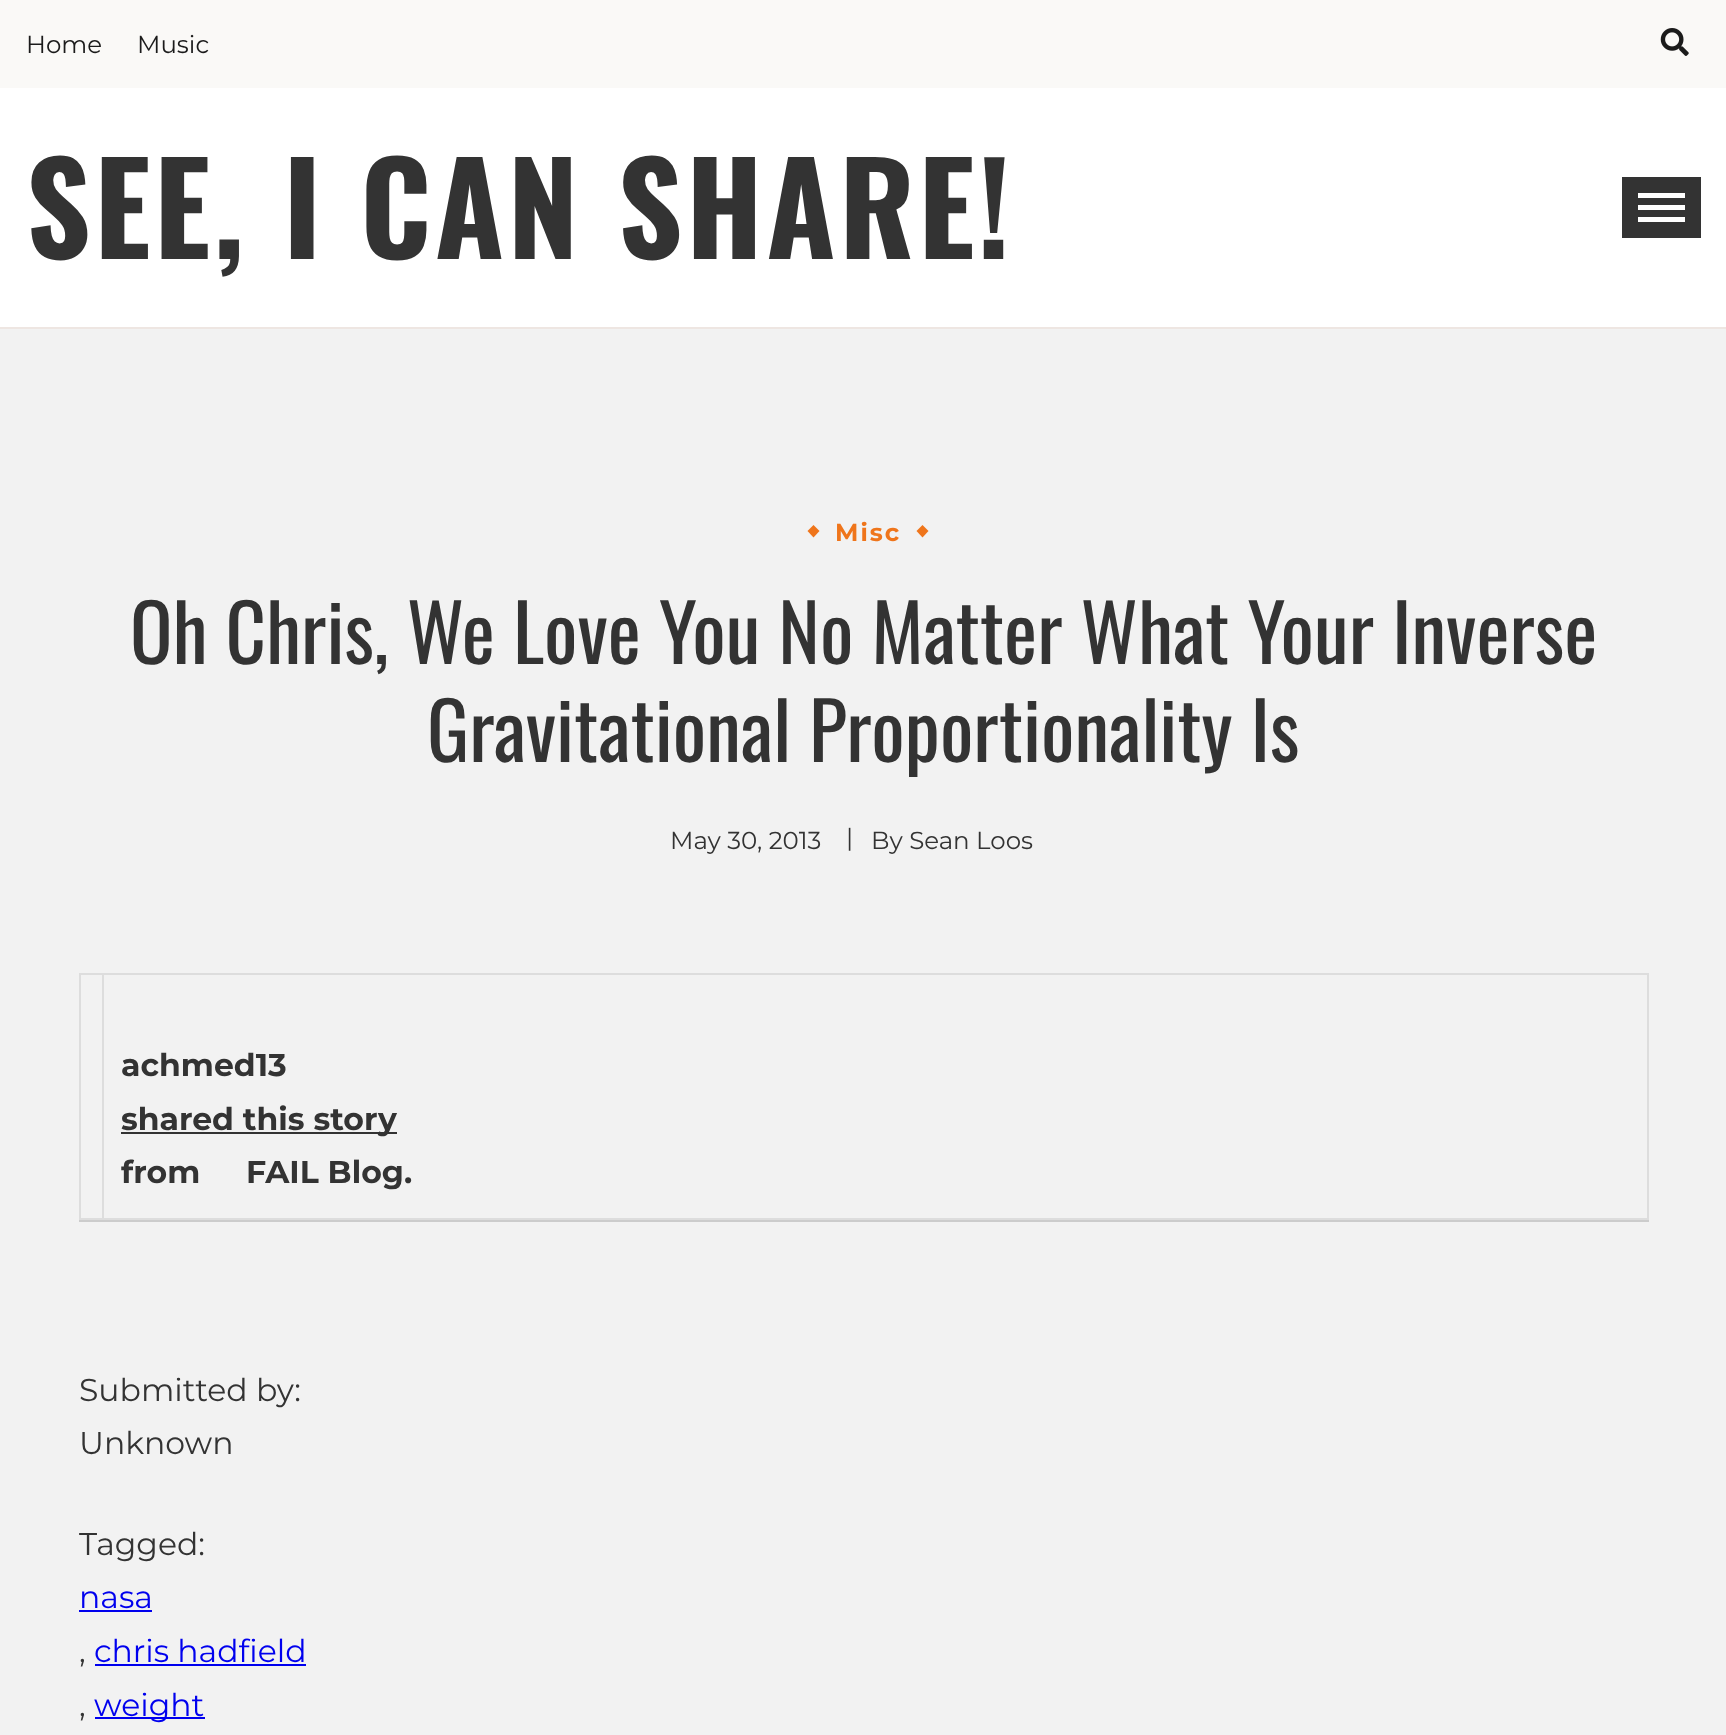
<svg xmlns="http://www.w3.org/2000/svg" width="1726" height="1735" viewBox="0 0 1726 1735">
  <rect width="100%" height="100%" fill="rgb(242,242,242)"/>
  <rect x="0" y="88" width="1726" height="239" fill="rgb(255,255,255)"/>
  <rect x="0" y="0" width="1726" height="88" fill="rgb(250,249,247)"/>
  <g font-family="Montserrat" font-size="24.5" fill="rgb(27,27,27)">
    <text x="26" y="53">Home</text>
    <text x="137" y="53">Music</text>
  </g>
  <image x="1660" y="28" width="29" height="28" href="pic1.png"/>
  <text x="26" y="259" font-family="Oswald" font-size="126" font-weight="bold" letter-spacing="3.5" fill="rgb(51,51,51)">SEE, I CAN SHARE!</text>
  <rect x="1622" y="177" width="79" height="61" fill="rgb(51,51,51)"/>
  <rect x="1638" y="193" width="47" height="5" fill="rgb(255,255,255)"/>
  <rect x="1638" y="205" width="47" height="5" fill="rgb(255,255,255)"/>
  <rect x="1638" y="217" width="47" height="5" fill="rgb(255,255,255)"/>
  <rect x="0" y="327" width="1726" height="2" fill="rgb(238,230,226)"/>
  <path d="M813.5 525L819.5 531L813.5 537.5L807.5 531Z" fill="rgb(239,117,27)"/>
  <text x="835" y="541" font-family="Montserrat" font-size="24.5" font-weight="bold" letter-spacing="2" fill="rgb(239,117,27)">Misc</text>
  <path d="M922.5 525L928.5 531L922.5 537.5L916.5 531Z" fill="rgb(239,117,27)"/>
  <g font-family="Oswald" font-size="78.75" fill="rgb(51,51,51)">
    <text x="130" y="664">Oh Chris, We Love You No Matter What Your Inverse</text>
    <text x="427" y="762">Gravitational Proportionality Is</text>
  </g>
  <g font-family="Montserrat" font-size="24.5" fill="rgb(51,51,51)">
    <text x="670" y="849">May 30, 2013</text>
    <text x="846" y="846">|</text>
    <text x="871" y="849">By Sean Loos</text>
  </g>
  <rect x="102" y="973" width="1547" height="2" fill="rgb(221,221,221)"/>
  <rect x="1647" y="973" width="2" height="247" fill="rgb(221,221,221)"/>
  <rect x="102" y="1218" width="1547" height="2" fill="rgb(221,221,221)"/>
  <rect x="102" y="973" width="2" height="247" fill="rgb(221,221,221)"/>
  <rect x="79" y="973" width="24" height="2" fill="rgb(221,221,221)"/>
  <rect x="79" y="1218" width="24" height="2" fill="rgb(221,221,221)"/>
  <rect x="79" y="973" width="2" height="247" fill="rgb(221,221,221)"/>
  <text x="121" y="1076" font-family="Montserrat" font-size="31.5" font-weight="bold" fill="rgb(51,51,51)">achmed13</text>
  <rect x="121" y="1132" width="276" height="2" fill="rgb(51,51,51)"/>
  <g font-family="Montserrat" font-size="31.5" font-weight="bold" fill="rgb(51,51,51)">
    <text>
      <tspan x="121" y="1130">shared this story</tspan>
      <tspan x="121" y="1183">from</tspan>
    </text>
    <text x="246" y="1183">FAIL Blog.</text>
  </g>
  <rect x="79" y="1220" width="1570" height="2" fill="rgb(204,204,204)"/>
  <g font-family="Montserrat" font-size="31.5" fill="rgb(51,51,51)">
    <text>
      <tspan x="79" y="1401">Submitted by:</tspan>
      <tspan x="79" y="1454">Unknown</tspan>
    </text>
    <text x="79" y="1555">Tagged:</text>
  </g>
  <text x="79" y="1608" font-family="Montserrat" font-size="31.5" fill="rgb(0,0,238)">nasa</text>
  <rect x="79" y="1610" width="73" height="2" fill="rgb(0,0,238)"/>
  <text x="79" y="1662" font-family="Montserrat" font-size="31.5" fill="rgb(51,51,51)">,</text>
  <text x="94" y="1662" font-family="Montserrat" font-size="31.5" fill="rgb(0,0,238)">chris hadfield</text>
  <rect x="95" y="1664" width="211" height="2" fill="rgb(0,0,238)"/>
  <text x="79" y="1716" font-family="Montserrat" font-size="31.5" fill="rgb(51,51,51)">,</text>
  <rect x="95" y="1717" width="110" height="2" fill="rgb(0,0,238)"/>
  <text x="94" y="1716" font-family="Montserrat" font-size="31.5" fill="rgb(0,0,238)">weight</text>
</svg>
